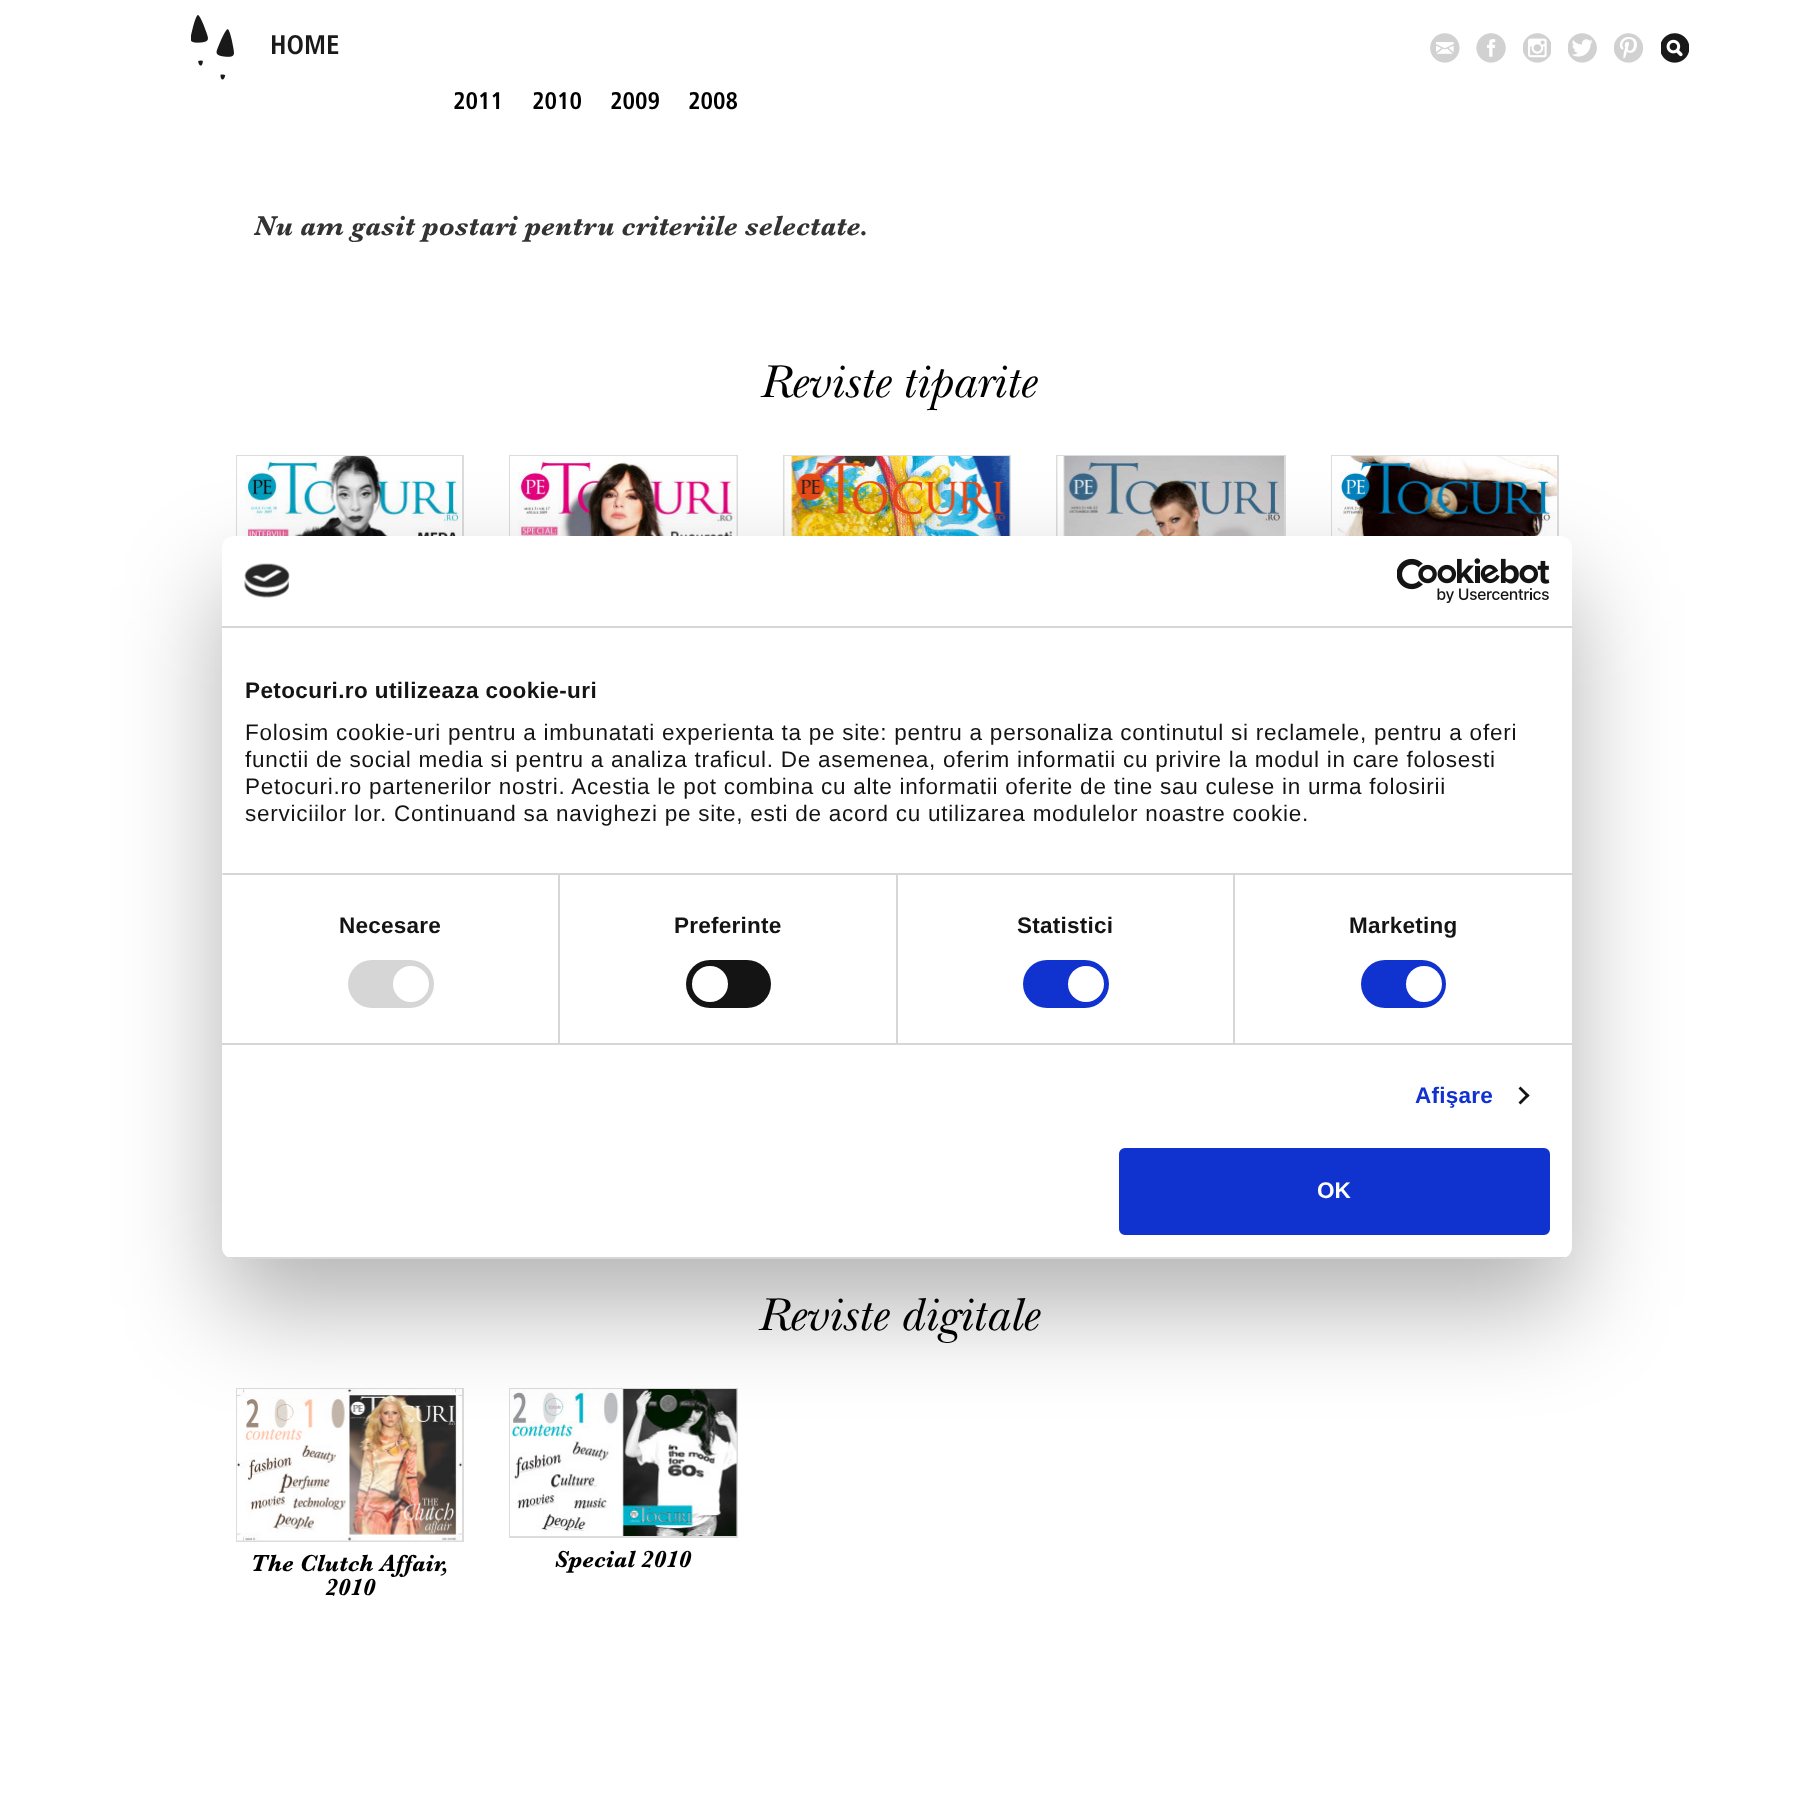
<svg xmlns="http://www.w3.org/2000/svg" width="1794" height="1794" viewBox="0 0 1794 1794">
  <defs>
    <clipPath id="clip1"><rect x="222" y="536" width="1350" height="723" rx="12"/></clipPath>
  </defs>
  <rect width="100%" height="100%" fill="rgb(255,255,255)"/>
  <image x="191" y="15" width="43" height="65" href="pic1.png"/>
  <text x="270" y="54" font-family="Frutiger" font-size="27" font-weight="bold" fill="rgb(26,26,26)">HOME</text>
  <image x="1430" y="33" width="30" height="30" href="pic2.png"/>
  <image x="1476" y="33" width="30" height="30" href="pic3.png"/>
  <image x="1523" y="33" width="28" height="30" href="pic4.png"/>
  <image x="1568" y="33" width="29" height="30" href="pic5.png"/>
  <image x="1614" y="33" width="29" height="30" href="pic6.png"/>
  <image x="1661" y="33" width="28" height="30" href="pic7.png"/>
  <g font-family="Frutiger" font-size="24" font-weight="bold" fill="rgb(0,0,0)">
    <text x="453" y="109">2011</text>
    <text x="532" y="109">2010</text>
    <text x="610" y="109">2009</text>
    <text x="688" y="109">2008</text>
  </g>
  <text x="254" y="235" font-family="Baskerville" font-size="28.5" font-weight="bold" font-style="italic" fill="rgb(51,51,51)">Nu am gasit postari pentru criteriile selectate.</text>
  <text x="759" y="397" font-family="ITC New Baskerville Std" font-size="48" font-style="italic" fill="rgb(0,0,0)">Reviste tiparite</text>
  <rect x="237" y="456" width="226" height="287" fill="none" stroke="rgb(220,220,220)" stroke-width="2"/>
  <image x="237" y="456" width="225" height="80" href="pic8.png"/>
  <rect x="510" y="456" width="227" height="287" fill="none" stroke="rgb(220,220,220)" stroke-width="2"/>
  <image x="510" y="456" width="227" height="80" href="pic9.png"/>
  <rect x="784" y="456" width="226" height="287" fill="none" stroke="rgb(220,220,220)" stroke-width="2"/>
  <image x="784" y="456" width="226" height="80" href="pic10.png"/>
  <rect x="1057" y="456" width="228" height="287" fill="none" stroke="rgb(220,220,220)" stroke-width="2"/>
  <image x="1057" y="456" width="227" height="80" href="pic11.png"/>
  <rect x="1332" y="456" width="226" height="287" fill="none" stroke="rgb(220,220,220)" stroke-width="2"/>
  <image x="1332" y="456" width="225" height="80" href="pic12.png"/>
  <text x="757" y="1330" font-family="ITC New Baskerville Std" font-size="48" font-style="italic" fill="rgb(0,0,0)">Reviste digitale</text>
  <rect x="237" y="1389" width="226" height="152" fill="none" stroke="rgb(220,220,220)" stroke-width="2"/>
  <image x="237" y="1389" width="225" height="152" href="pic13.png"/>
  <g font-family="Baskerville" font-size="24" font-weight="bold" font-style="italic" fill="rgb(0,0,0)">
    <text x="251" y="1571">The Clutch Affair,</text>
    <text x="325" y="1595">2010</text>
  </g>
  <rect x="510" y="1389" width="227" height="148" fill="none" stroke="rgb(220,220,220)" stroke-width="2"/>
  <image x="510" y="1389" width="227" height="147" href="pic14.png"/>
  <text x="555" y="1567" font-family="Baskerville" font-size="24" font-weight="bold" font-style="italic" fill="rgb(0,0,0)">Special 2010</text>
  <rect x="222" y="584" width="1350" height="723" rx="12" fill="rgba(0,0,0,0.3)" filter="blur(51px)"/>
  <rect x="222" y="536" width="1350" height="723" rx="12" fill="rgb(255,255,255)"/>
  <rect x="222" y="626" width="1350" height="2" fill="rgb(214,214,214)"/>
  <image x="244" y="563" width="46" height="35" href="pic15.png"/>
  <image x="1397" y="558" width="153" height="45" href="pic16.png"/>
  <rect x="222" y="873" width="1350" height="2" fill="rgb(214,214,214)"/>
  <text x="245" y="698" font-family="Liberation Sans" font-size="22.5" font-weight="bold" letter-spacing="0.4" fill="rgb(20,20,20)">Petocuri.ro utilizeaza cookie-uri</text>
  <g font-family="Liberation Sans" font-size="22.5" letter-spacing="0.75" fill="rgb(20,20,20)">
    <text>
      <tspan x="245" y="740">Folosim cookie-uri pentru a imbunatati experienta ta pe site: pentru a personaliza continutul si reclamele, pentru a oferi</tspan>
      <tspan x="245" y="767">functii de social media si pentru a analiza traficul. De asemenea, oferim informatii cu privire la modul in care folosesti</tspan>
      <tspan x="245" y="794">Petocuri.ro partenerilor nostri. Acestia le pot combina cu alte informatii oferite de tine sau culese in urma folosirii</tspan>
      <tspan x="245" y="821">serviciilor lor. Continuand sa navighezi pe site, esti de acord cu utilizarea modulelor noastre cookie.</tspan>
    </text>
  </g>
  <rect x="222" y="1043" width="1350" height="2" fill="rgb(214,214,214)"/>
  <rect x="222" y="873" width="1" height="2" fill="rgb(229,229,229)"/>
  <rect x="558" y="875" width="2" height="168" fill="rgb(214,214,214)"/>
  <text x="339" y="933" font-family="Liberation Sans" font-size="22.5" font-weight="bold" letter-spacing="0.25" fill="rgb(20,20,20)">Necesare</text>
  <rect x="348" y="960" width="86" height="48" rx="24" fill="rgb(214,214,214)"/>
  <circle cx="411" cy="984" r="18" fill="rgb(255,255,255)"/>
  <rect x="896" y="875" width="2" height="168" fill="rgb(214,214,214)"/>
  <text x="674" y="933" font-family="Liberation Sans" font-size="22.5" font-weight="bold" letter-spacing="0.25" fill="rgb(20,20,20)">Preferinte</text>
  <rect x="686" y="960" width="85" height="48" rx="24" fill="rgb(20,20,20)"/>
  <circle cx="710" cy="984" r="18" fill="rgb(255,255,255)"/>
  <rect x="1233" y="875" width="2" height="168" fill="rgb(214,214,214)"/>
  <text x="1017" y="933" font-family="Liberation Sans" font-size="22.5" font-weight="bold" letter-spacing="0.25" fill="rgb(20,20,20)">Statistici</text>
  <rect x="1023" y="960" width="86" height="48" rx="24" fill="rgb(16,50,207)"/>
  <circle cx="1086" cy="984" r="18" fill="rgb(255,255,255)"/>
  <text x="1349" y="933" font-family="Liberation Sans" font-size="22.5" font-weight="bold" letter-spacing="0.25" fill="rgb(20,20,20)">Marketing</text>
  <rect x="1361" y="960" width="85" height="48" rx="24" fill="rgb(16,50,207)"/>
  <circle cx="1424" cy="984" r="18" fill="rgb(255,255,255)"/>
  <text x="1415" y="1103" font-family="Liberation Sans" font-size="22.5" font-weight="bold" letter-spacing="0.25" fill="rgb(16,50,207)">Afişare</text>
  <path d="M1520.5 1086.5L1529.5 1095.5L1527.5 1097.5L1518.5 1088.5Z" fill="rgb(20,20,20)"/>
  <path d="M1527.5 1093.5L1529.5 1095.5L1520.5 1104.5L1518.5 1102.5Z" fill="rgb(20,20,20)"/>
  <g clip-path="url(#clip1)">
    <rect x="222" y="1257" width="1350" height="2" fill="rgb(214,214,214)"/>
  </g>
  <rect x="1120.5" y="1149.5" width="428" height="84" rx="4.5" fill="rgb(16,50,207)" stroke="rgb(16,50,207)" stroke-width="3"/>
  <text x="1317" y="1198" font-family="Liberation Sans" font-size="22.5" font-weight="bold" fill="rgb(255,255,255)">OK</text>
</svg>
